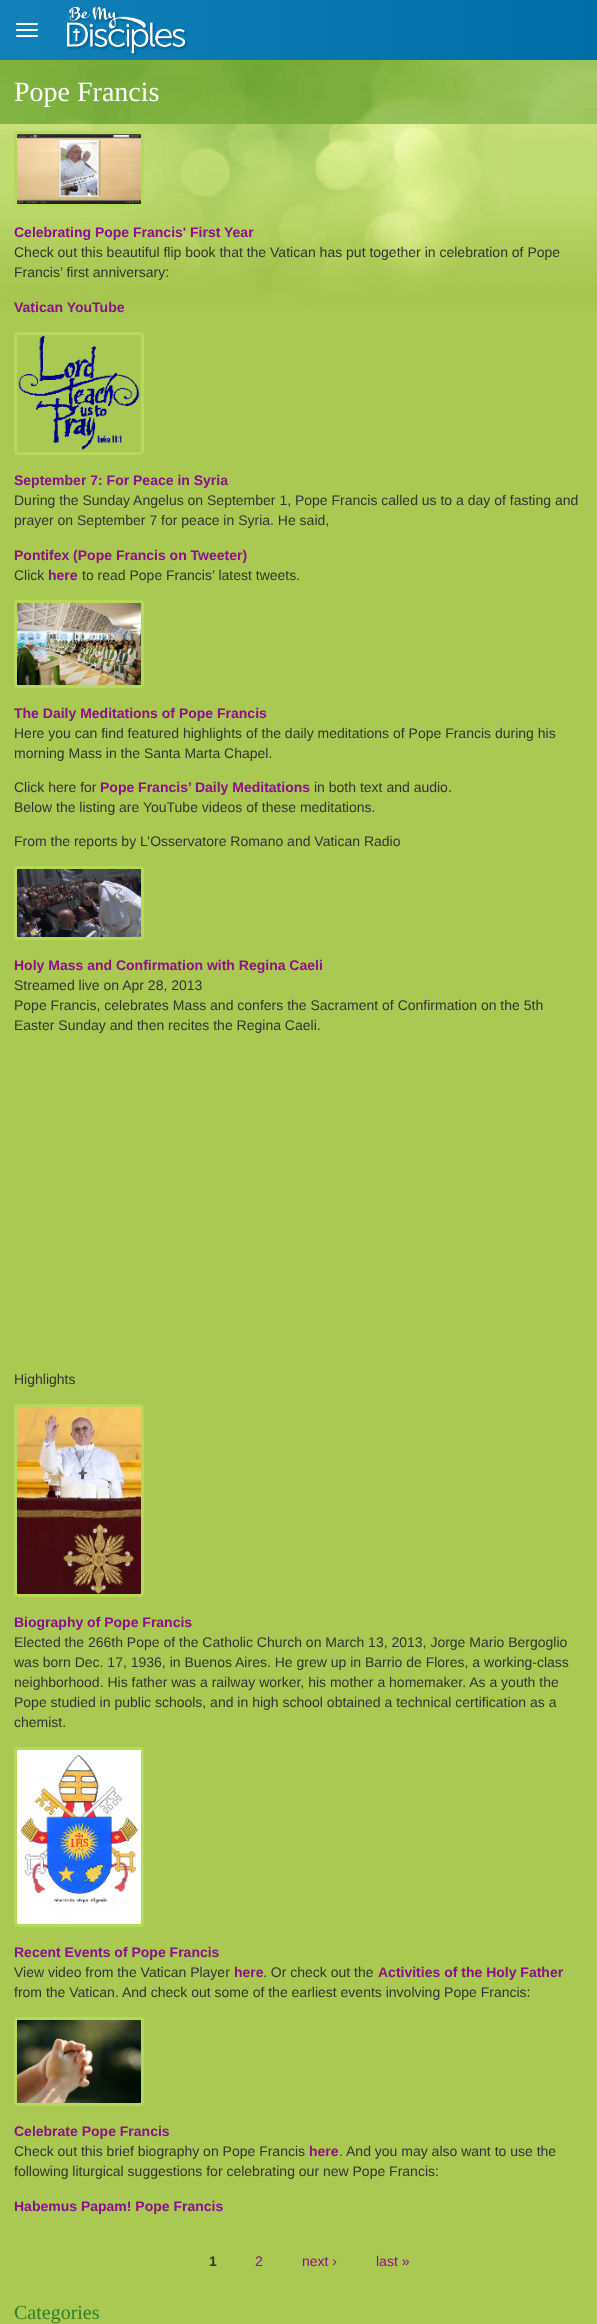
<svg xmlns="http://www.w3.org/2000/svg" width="597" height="2324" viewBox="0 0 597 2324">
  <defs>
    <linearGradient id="g1" gradientUnits="userSpaceOnUse" x1="0" y1="30" x2="597" y2="30"><stop offset="0" stop-color="rgb(19,129,185)"/><stop offset="1" stop-color="rgb(0,110,166)"/></linearGradient>
  </defs>
  <rect width="100%" height="100%" fill="rgb(255,255,255)"/>
  <rect x="0" y="0" width="597" height="60" fill="url(#g1)"/>
  <rect x="16" y="23" width="22" height="2" rx="1" fill="rgb(255,255,255)"/>
  <rect x="16" y="29" width="22" height="2" rx="1" fill="rgb(255,255,255)"/>
  <rect x="16" y="35" width="22" height="2" rx="1" fill="rgb(255,255,255)"/>
  <image x="67" y="7" width="121" height="48" href="pic1.png"/>
  <image x="0" y="60" width="597" height="64" href="pic2.png"/>
  <text x="14" y="101" font-family="Liberation Serif" font-size="28" fill="rgb(255,255,255)">Pope Francis</text>
  <rect x="0" y="124" width="597" height="2200" fill="rgb(170,201,82)"/>
  <image x="0" y="124" width="597" height="182" href="pic3.png"/>
  <rect x="15.5" y="132.5" width="127" height="73" rx="2.5" fill="none" stroke="rgb(180,218,90)" stroke-width="3"/>
  <image x="17" y="134" width="124" height="70" href="pic4.png"/>
  <text x="14" y="237" font-family="Arimo" font-size="14" font-weight="bold" fill="rgb(141,15,140)">Celebrating Pope Francis' First Year</text>
  <g font-family="Arimo" font-size="14" fill="rgb(51,51,51)">
    <text>
      <tspan x="14" y="257">Check out this beautiful flip book that the Vatican has put together in celebration of Pope</tspan>
      <tspan x="14" y="277">Francis’ first anniversary:</tspan>
    </text>
  </g>
  <text x="14" y="312" font-family="Arimo" font-size="14" font-weight="bold" fill="rgb(141,15,140)">Vatican YouTube</text>
  <rect x="15.5" y="333.5" width="127" height="120" rx="2.5" fill="none" stroke="rgb(180,218,90)" stroke-width="3"/>
  <image x="18" y="335" width="122" height="115" href="pic5.png"/>
  <text x="14" y="485" font-family="Arimo" font-size="14" font-weight="bold" fill="rgb(141,15,140)">September 7: For Peace in Syria</text>
  <g font-family="Arimo" font-size="14" fill="rgb(51,51,51)">
    <text>
      <tspan x="14" y="505">During the Sunday Angelus on September 1, Pope Francis called us to a day of fasting and</tspan>
      <tspan x="14" y="525">prayer on September 7 for peace in Syria. He said,</tspan>
    </text>
  </g>
  <text x="14" y="560" font-family="Arimo" font-size="14" font-weight="bold" fill="rgb(141,15,140)">Pontifex (Pope Francis on Tweeter)</text>
  <text x="14" y="580" font-family="Arimo" font-size="14" fill="rgb(51,51,51)">Click</text>
  <text x="48" y="580" font-family="Arimo" font-size="14" font-weight="bold" fill="rgb(141,15,140)">here</text>
  <text x="82" y="580" font-family="Arimo" font-size="14" fill="rgb(51,51,51)">to read Pope Francis’ latest tweets.</text>
  <rect x="15.5" y="601.5" width="127" height="85" rx="2.5" fill="none" stroke="rgb(180,218,90)" stroke-width="3"/>
  <image x="17" y="603" width="124" height="82" href="pic6.png"/>
  <text x="14" y="718" font-family="Arimo" font-size="14" font-weight="bold" fill="rgb(141,15,140)">The Daily Meditations of Pope Francis</text>
  <g font-family="Arimo" font-size="14" fill="rgb(51,51,51)">
    <text>
      <tspan x="14" y="738">Here you can find featured highlights of the daily meditations of Pope Francis during his</tspan>
      <tspan x="14" y="758">morning Mass in the Santa Marta Chapel.</tspan>
    </text>
    <text x="14" y="792">Click here for</text>
  </g>
  <text x="100" y="792" font-family="Arimo" font-size="14" font-weight="bold" fill="rgb(141,15,140)">Pope Francis’ Daily Meditations</text>
  <g font-family="Arimo" font-size="14" fill="rgb(51,51,51)">
    <text x="314" y="792">in both text and audio.</text>
    <text x="14" y="812">Below the listing are YouTube videos of these meditations.</text>
    <text x="14" y="846">From the reports by L’Osservatore Romano and Vatican Radio</text>
  </g>
  <rect x="15.5" y="867.5" width="127" height="71" rx="2.5" fill="none" stroke="rgb(180,218,90)" stroke-width="3"/>
  <image x="17" y="869" width="124" height="68" href="pic7.png"/>
  <text x="14" y="970" font-family="Arimo" font-size="14" font-weight="bold" fill="rgb(141,15,140)">Holy Mass and Confirmation with Regina Caeli</text>
  <g font-family="Arimo" font-size="14" fill="rgb(51,51,51)">
    <text>
      <tspan x="14" y="990">Streamed live on Apr 28, 2013</tspan>
      <tspan x="14" y="1010">Pope Francis, celebrates Mass and confers the Sacrament of Confirmation on the 5th</tspan>
      <tspan x="14" y="1030">Easter Sunday and then recites the Regina Caeli.</tspan>
    </text>
    <text x="14" y="1384">Highlights</text>
  </g>
  <rect x="15.5" y="1405.5" width="127" height="190" rx="2.5" fill="none" stroke="rgb(180,218,90)" stroke-width="3"/>
  <image x="17" y="1407" width="124" height="187" href="pic8.png"/>
  <text x="14" y="1627" font-family="Arimo" font-size="14" font-weight="bold" fill="rgb(141,15,140)">Biography of Pope Francis</text>
  <g font-family="Arimo" font-size="14" fill="rgb(51,51,51)">
    <text>
      <tspan x="14" y="1647">Elected the 266th Pope of the Catholic Church on March 13, 2013, Jorge Mario Bergoglio</tspan>
      <tspan x="14" y="1667">was born Dec. 17, 1936, in Buenos Aires. He grew up in Barrio de Flores, a working-class</tspan>
      <tspan x="14" y="1687">neighborhood. His father was a railway worker, his mother a homemaker. As a youth the</tspan>
      <tspan x="14" y="1707">Pope studied in public schools, and in high school obtained a technical certification as a</tspan>
      <tspan x="14" y="1727">chemist.</tspan>
    </text>
  </g>
  <rect x="15.5" y="1748.5" width="127" height="177" rx="2.5" fill="none" stroke="rgb(180,218,90)" stroke-width="3"/>
  <image x="17" y="1750" width="124" height="174" href="pic9.png"/>
  <text x="14" y="1957" font-family="Arimo" font-size="14" font-weight="bold" fill="rgb(141,15,140)">Recent Events of Pope Francis</text>
  <text x="14" y="1977" font-family="Arimo" font-size="14" fill="rgb(51,51,51)">View video from the Vatican Player</text>
  <text x="234" y="1977" font-family="Arimo" font-size="14" font-weight="bold" fill="rgb(141,15,140)">here</text>
  <text x="263" y="1977" font-family="Arimo" font-size="14" fill="rgb(51,51,51)">. Or check out the</text>
  <text x="378" y="1977" font-family="Arimo" font-size="14" font-weight="bold" fill="rgb(141,15,140)">Activities of the Holy Father</text>
  <text x="14" y="1997" font-family="Arimo" font-size="14" fill="rgb(51,51,51)">from the Vatican. And check out some of the earliest events involving Pope Francis:</text>
  <rect x="15.5" y="2018.5" width="127" height="86" rx="2.5" fill="none" stroke="rgb(180,218,90)" stroke-width="3"/>
  <image x="17" y="2020" width="124" height="83" href="pic10.png"/>
  <text x="14" y="2136" font-family="Arimo" font-size="14" font-weight="bold" fill="rgb(141,15,140)">Celebrate Pope Francis</text>
  <text x="14" y="2156" font-family="Arimo" font-size="14" fill="rgb(51,51,51)">Check out this brief biography on Pope Francis</text>
  <text x="309" y="2156" font-family="Arimo" font-size="14" font-weight="bold" fill="rgb(141,15,140)">here</text>
  <g font-family="Arimo" font-size="14" fill="rgb(51,51,51)">
    <text x="339" y="2156">. And you may also want to use the</text>
    <text x="14" y="2176">following liturgical suggestions for celebrating our new Pope Francis:</text>
  </g>
  <text x="14" y="2211" font-family="Arimo" font-size="14" font-weight="bold" fill="rgb(141,15,140)">Habemus Papam! Pope Francis</text>
  <text x="209" y="2266" font-family="Arimo" font-size="14" font-weight="bold" fill="rgb(51,51,51)">1</text>
  <g font-family="Arimo" font-size="14" fill="rgb(141,15,140)">
    <text x="255" y="2266">2</text>
    <text x="302" y="2266">next ›</text>
    <text x="376" y="2266">last »</text>
  </g>
  <text x="14" y="2319" font-family="Liberation Serif" font-size="20" fill="rgb(45,128,42)">Categories</text>
</svg>
